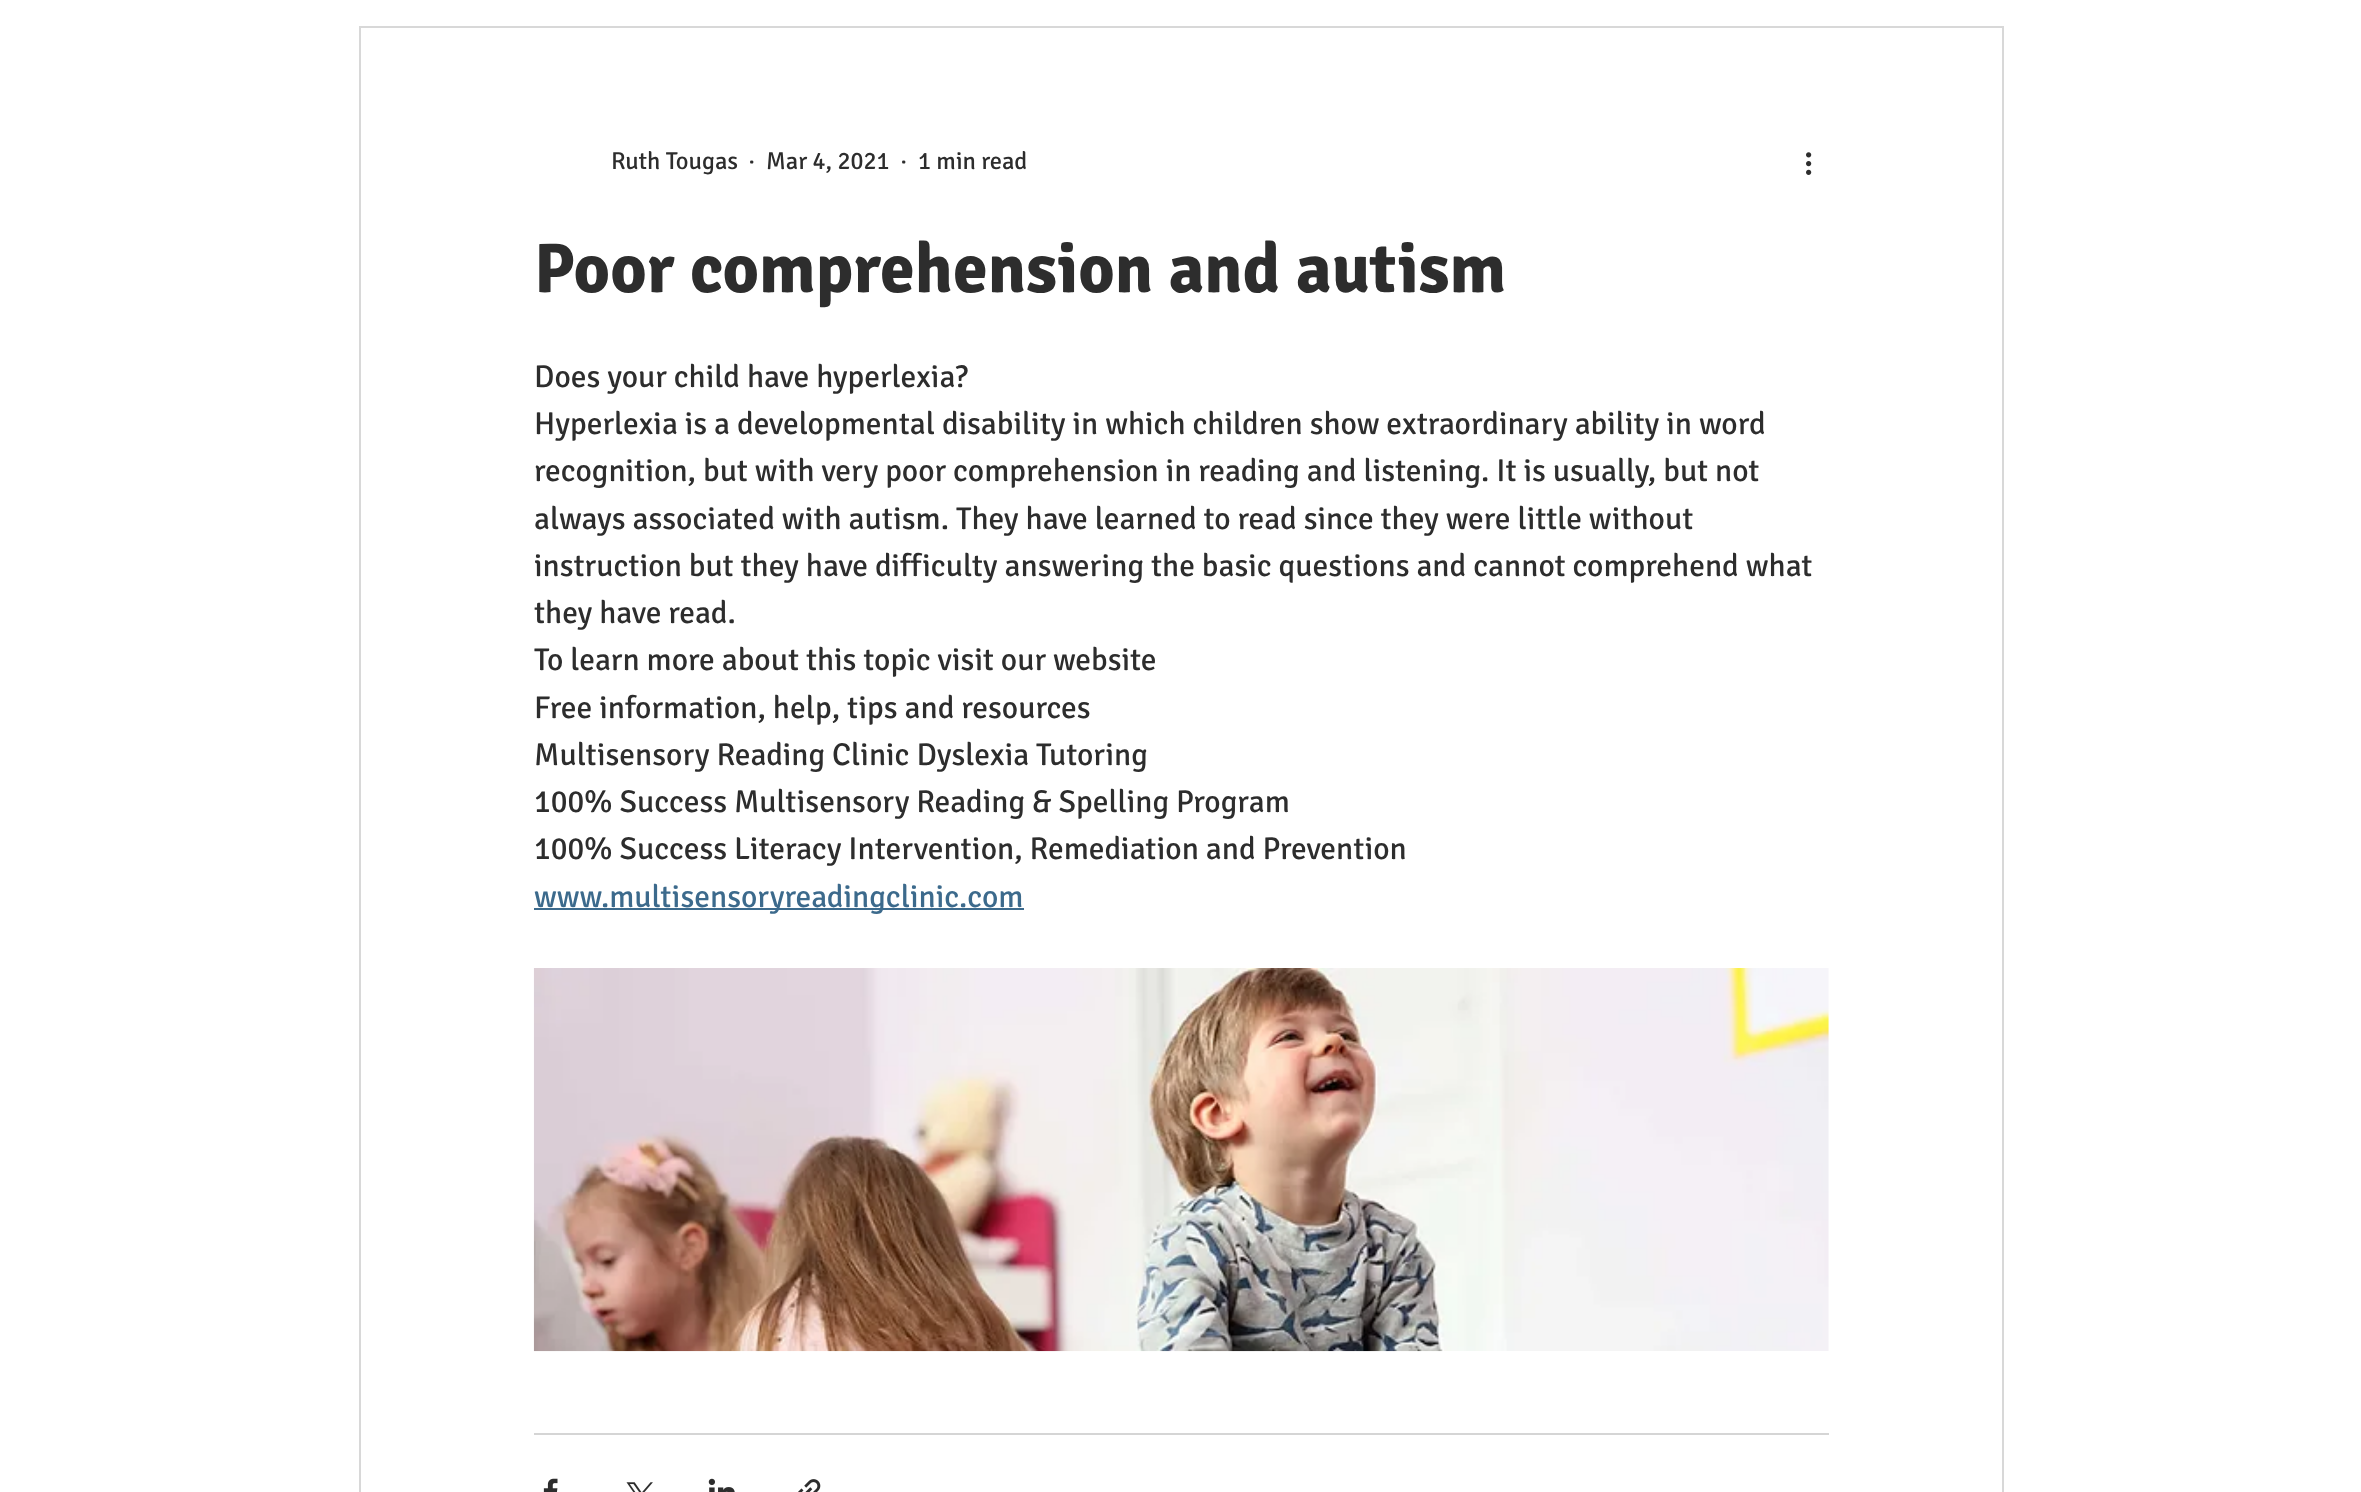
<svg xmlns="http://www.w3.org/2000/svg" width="2361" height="1492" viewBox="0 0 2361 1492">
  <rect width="100%" height="100%" fill="rgb(255,255,255)"/>
  <rect x="360" y="27" width="1643" height="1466" fill="none" stroke="rgb(216,216,216)" stroke-width="2"/>
  <g font-family="Signika" font-size="24.5" fill="rgb(45,45,45)">
    <text x="611" y="169">Ruth Tougas</text>
    <text x="748" y="169">·</text>
    <text x="766" y="169">Mar 4, 2021</text>
    <text x="900" y="169">·</text>
    <text x="918" y="169">1 min read</text>
  </g>
  <image x="1806" y="152" width="6" height="23" href="pic1.png"/>
  <text x="534" y="292" font-family="Signika" font-size="70" font-weight="bold" fill="rgb(45,45,45)">Poor comprehension and autism</text>
  <g font-family="Signika" font-size="31.5" fill="rgb(45,45,45)">
    <text>
      <tspan x="534" y="387">Does your child have hyperlexia?</tspan>
      <tspan x="534" y="434">Hyperlexia is a developmental disability in which children show extraordinary ability in word</tspan>
      <tspan x="534" y="481">recognition, but with very poor comprehension in reading and listening. It is usually, but not</tspan>
      <tspan x="534" y="529">always associated with autism. They have learned to read since they were little without</tspan>
      <tspan x="534" y="576">instruction but they have difficulty answering the basic questions and cannot comprehend what</tspan>
      <tspan x="534" y="623">they have read.</tspan>
      <tspan x="534" y="670">To learn more about this topic visit our website</tspan>
      <tspan x="534" y="718">Free information, help, tips and resources</tspan>
      <tspan x="534" y="765">Multisensory Reading Clinic Dyslexia Tutoring</tspan>
      <tspan x="534" y="812">100% Success Multisensory Reading &amp; Spelling Program</tspan>
      <tspan x="534" y="859">100% Success Literacy Intervention, Remediation and Prevention</tspan>
    </text>
  </g>
  <rect x="534" y="908" width="490" height="2" fill="rgb(60,106,140)"/>
  <text x="534" y="907" font-family="Signika" font-size="31.5" fill="rgb(60,106,140)">www.multisensoryreadingclinic.com</text>
  <image x="533" y="968" width="1296" height="384" href="pic2.png"/>
  <rect x="534" y="1433" width="1295" height="2" fill="rgb(213,213,213)"/>
  <image x="543" y="1478" width="15" height="14" href="pic3.png"/>
  <image x="626" y="1482" width="27" height="10" href="pic4.png"/>
  <image x="708" y="1478" width="27" height="14" href="pic5.png"/>
  <image x="798" y="1479" width="23" height="13" href="pic6.png"/>
</svg>
